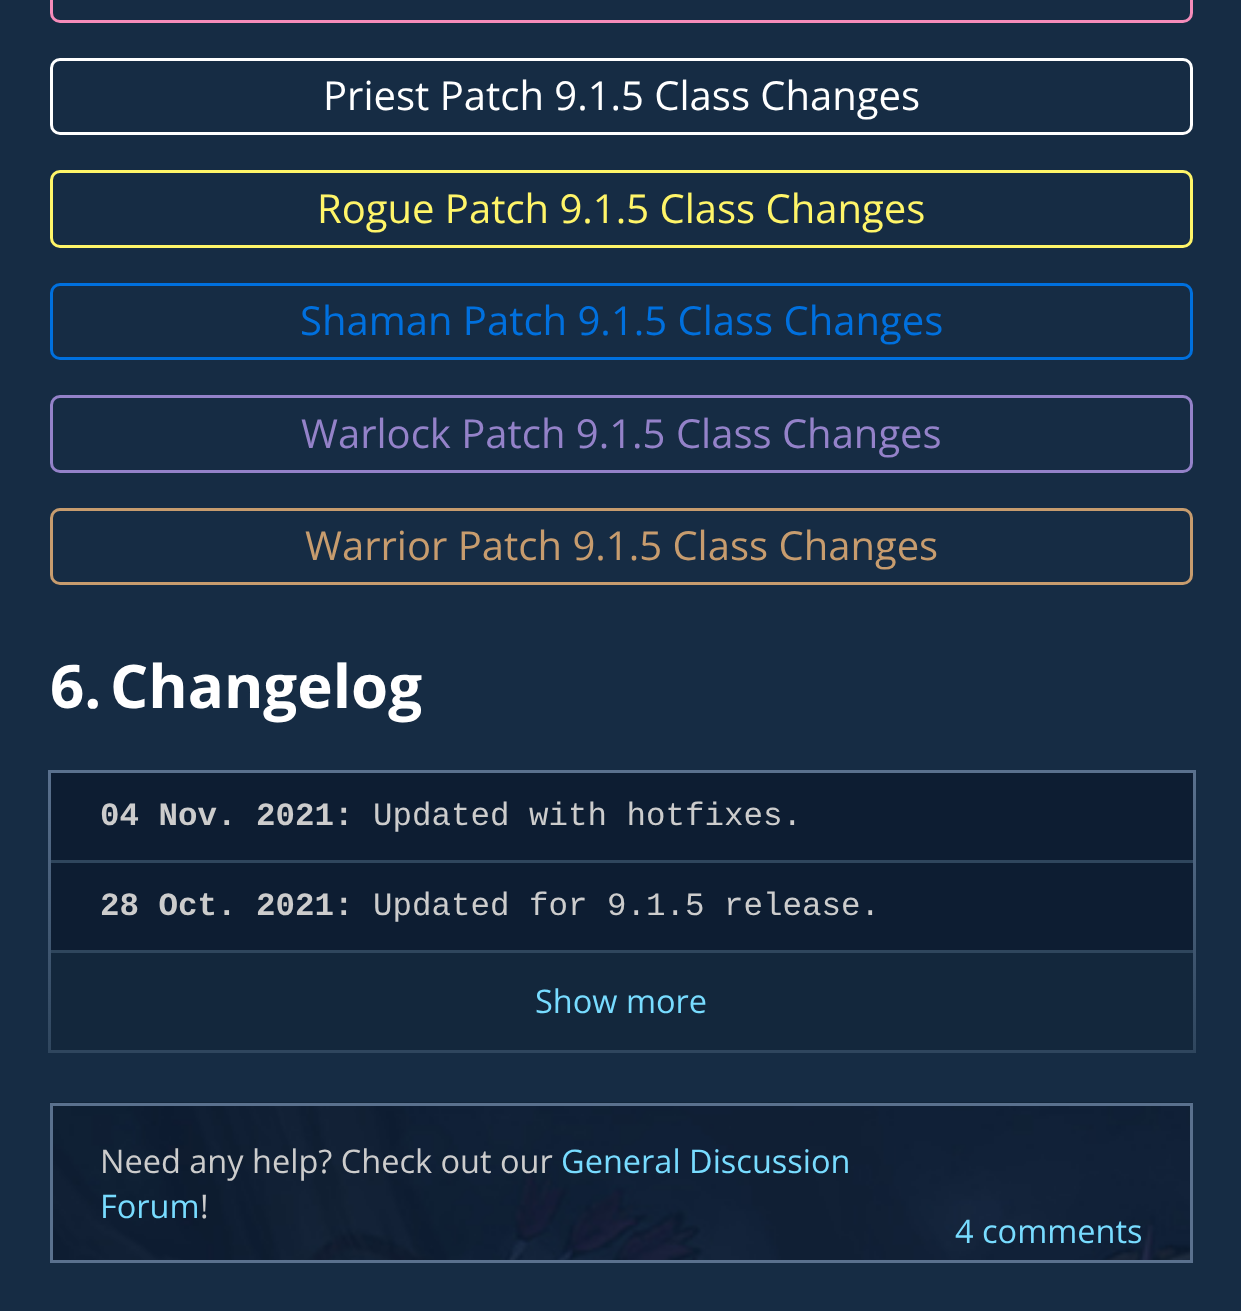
<svg xmlns="http://www.w3.org/2000/svg" width="1241" height="1311" viewBox="0 0 1241 1311">
  <defs>
    <linearGradient id="g1" gradientUnits="userSpaceOnUse" x1="49" y1="770" x2="49" y2="1053"><stop offset="0" stop-color="rgb(90,113,142)"/><stop offset="1" stop-color="rgb(47,70,94)"/></linearGradient>
    <linearGradient id="g2" gradientUnits="userSpaceOnUse" x1="1194" y1="770" x2="1194" y2="1053"><stop offset="0" stop-color="rgb(90,113,142)"/><stop offset="1" stop-color="rgb(47,70,94)"/></linearGradient>
  </defs>
  <rect width="100%" height="100%" fill="rgb(22,44,68)"/>
  <rect x="51.5" y="-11.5" width="1140" height="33" rx="8.5" fill="none" stroke="rgb(245,140,186)" stroke-width="3"/>
  <rect x="51.5" y="59.5" width="1140" height="74" rx="8.5" fill="none" stroke="rgb(255,255,255)" stroke-width="3"/>
  <text x="323" y="110" font-family="Open Sans" font-size="40" fill="rgb(255,255,255)">Priest Patch 9.1.5 Class Changes</text>
  <rect x="51.5" y="171.5" width="1140" height="75" rx="8.5" fill="none" stroke="rgb(255,245,105)" stroke-width="3"/>
  <text x="317" y="223" font-family="Open Sans" font-size="40" fill="rgb(255,245,105)">Rogue Patch 9.1.5 Class Changes</text>
  <rect x="51.5" y="284.5" width="1140" height="74" rx="8.5" fill="none" stroke="rgb(0,112,222)" stroke-width="3"/>
  <text x="300" y="335" font-family="Open Sans" font-size="40" fill="rgb(0,112,222)">Shaman Patch 9.1.5 Class Changes</text>
  <rect x="51.5" y="396.5" width="1140" height="75" rx="8.5" fill="none" stroke="rgb(148,130,201)" stroke-width="3"/>
  <text x="301" y="448" font-family="Open Sans" font-size="40" fill="rgb(148,130,201)">Warlock Patch 9.1.5 Class Changes</text>
  <rect x="51.5" y="509.5" width="1140" height="74" rx="8.5" fill="none" stroke="rgb(199,156,110)" stroke-width="3"/>
  <text x="305" y="560" font-family="Open Sans" font-size="40" fill="rgb(199,156,110)">Warrior Patch 9.1.5 Class Changes</text>
  <g font-family="Open Sans" font-size="60" font-weight="bold" fill="rgb(255,255,255)">
    <text x="50" y="708">6.</text>
    <text x="110" y="708">Changelog</text>
  </g>
  <rect x="51" y="773" width="1142" height="177" fill="rgb(13,29,50)"/>
  <rect x="50" y="770" width="1143" height="3" fill="rgb(90,113,142)"/>
  <rect x="50" y="1050" width="1143" height="3" fill="rgb(47,70,94)"/>
  <rect x="50" y="860" width="1143" height="3" fill="rgb(47,70,93)"/>
  <rect x="50" y="950" width="1143" height="3" fill="rgb(47,70,93)"/>
  <rect x="48" y="770" width="3" height="283" fill="url(#g1)"/>
  <text x="100" y="825" font-family="Liberation Mono" font-size="32.5" font-weight="bold" fill="rgb(204,204,204)">04 Nov. 2021:</text>
  <text x="373" y="825" font-family="Liberation Mono" font-size="32.5" fill="rgb(204,204,204)">Updated with hotfixes.</text>
  <text x="100" y="915" font-family="Liberation Mono" font-size="32.5" font-weight="bold" fill="rgb(204,204,204)">28 Oct. 2021:</text>
  <text x="373" y="915" font-family="Liberation Mono" font-size="32.5" fill="rgb(204,204,204)">Updated for 9.1.5 release.</text>
  <rect x="1193" y="770" width="3" height="283" fill="url(#g2)"/>
  <rect x="51" y="953" width="1142" height="97" fill="rgb(19,39,60)"/>
  <text x="535" y="1013" font-family="Open Sans" font-size="32.5" fill="rgb(120,220,255)">Show more</text>
  <image x="50" y="1102" width="1143" height="158" href="pic1.png"/>
  <rect x="51.5" y="1104.5" width="1140" height="157" fill="none" stroke="rgb(90,113,142)" stroke-width="3"/>
  <text x="100" y="1173" font-family="Open Sans" font-size="32.5" fill="rgb(204,204,204)">Need any help? Check out our</text>
  <g font-family="Open Sans" font-size="32.5" fill="rgb(120,220,255)">
    <text x="561" y="1173">General Discussion</text>
    <text x="100" y="1218">Forum</text>
  </g>
  <text x="200" y="1218" font-family="Open Sans" font-size="32.5" fill="rgb(204,204,204)">!</text>
  <text x="955" y="1243" font-family="Open Sans" font-size="32.5" fill="rgb(120,220,255)">4 comments</text>
</svg>
